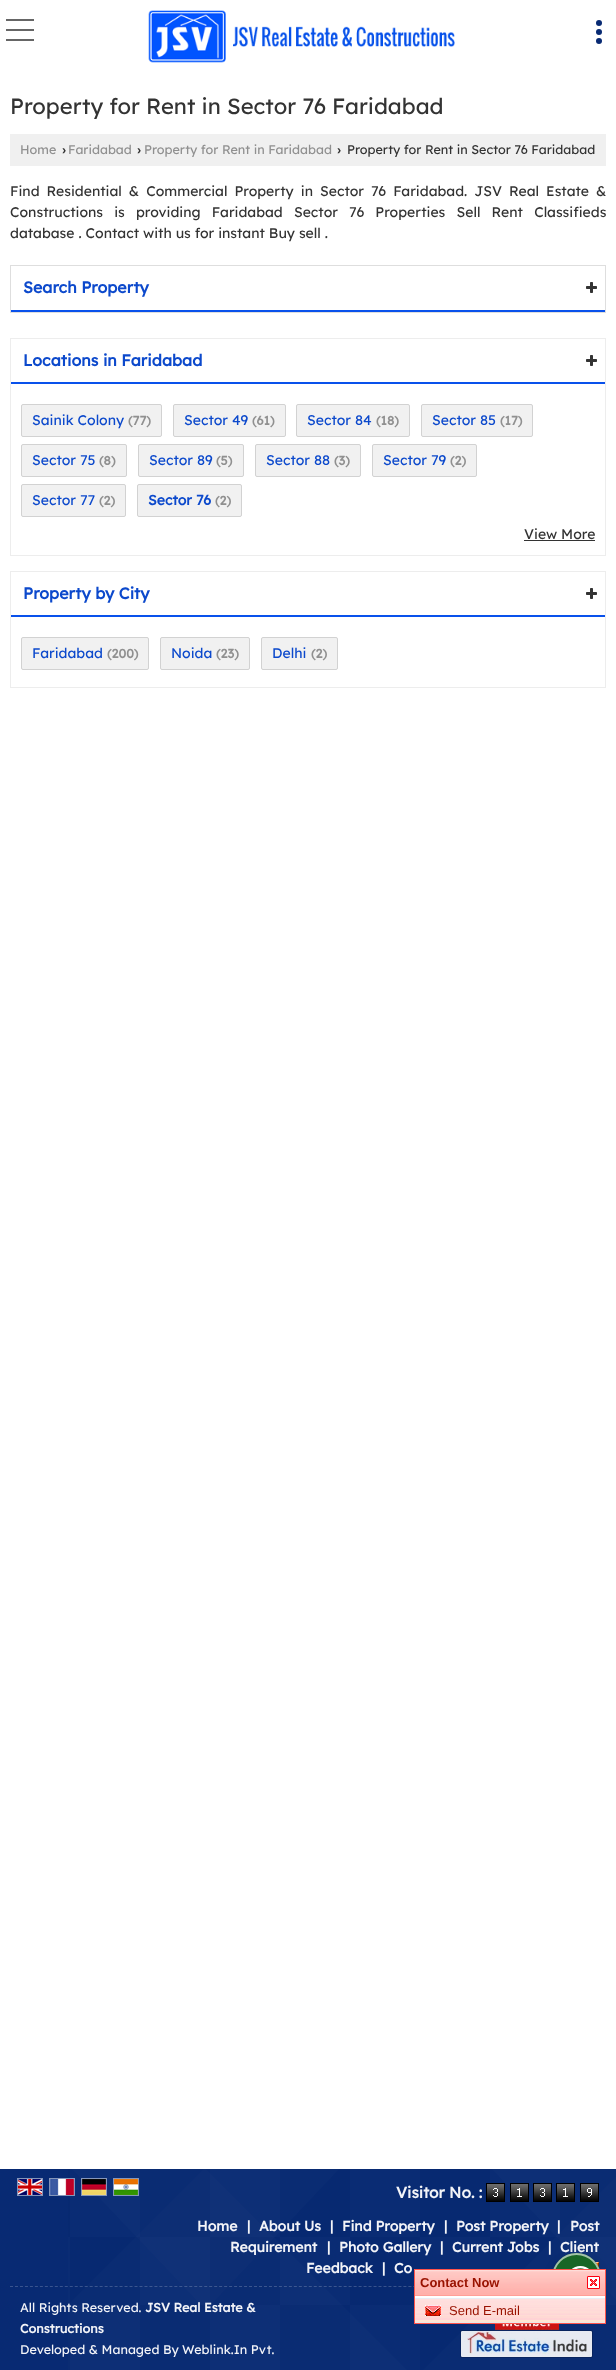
<svg xmlns="http://www.w3.org/2000/svg" width="616" height="2370" viewBox="0 0 616 2370">
  <rect width="100%" height="100%" fill="rgb(255,255,255)"/>
  <image x="148" y="10" width="307" height="53" href="pic1.png"/>
  <rect x="6" y="29" width="28" height="2" fill="rgb(102,102,102)"/>
  <rect x="6" y="19" width="28" height="2" fill="rgb(102,102,102)"/>
  <rect x="6" y="39" width="28" height="2" fill="rgb(102,102,102)"/>
  <circle cx="599" cy="32" r="3" fill="rgb(8,42,115)"/>
  <circle cx="599" cy="23" r="3" fill="rgb(8,42,115)"/>
  <circle cx="599" cy="41" r="3" fill="rgb(8,42,115)"/>
  <text x="10" y="114" font-family="Lexend" font-size="22" fill="rgb(51,51,51)">Property for Rent in Sector 76 Faridabad</text>
  <rect x="10" y="134" width="596" height="32" fill="rgb(240,240,240)"/>
  <text x="20" y="154" font-family="Lexend" font-size="12.6" fill="rgb(144,144,144)">Home</text>
  <text x="62" y="154" font-family="Liberation Sans" font-size="12.6" font-weight="bold" fill="rgb(51,51,51)">›</text>
  <text x="68" y="154" font-family="Lexend" font-size="12.6" fill="rgb(144,144,144)">Faridabad</text>
  <text x="137" y="154" font-family="Liberation Sans" font-size="12.6" font-weight="bold" fill="rgb(51,51,51)">›</text>
  <text x="144" y="154" font-family="Lexend" font-size="12.6" fill="rgb(144,144,144)">Property for Rent in Faridabad</text>
  <text x="337" y="154" font-family="Liberation Sans" font-size="12.6" font-weight="bold" fill="rgb(51,51,51)">›</text>
  <text x="347" y="154" font-family="Lexend" font-size="12.6" fill="rgb(51,51,51)">Property for Rent in Sector 76 Faridabad</text>
  <g font-family="Lexend" font-size="14" fill="rgb(51,51,51)">
    <text>
      <tspan x="10" y="196" word-spacing="3.1">Find Residential &amp; Commercial Property in Sector 76 Faridabad. JSV Real Estate &amp;</tspan>
      <tspan x="10" y="217" word-spacing="7.25">Constructions is</tspan>
    </text>
    <text x="136" y="217" word-spacing="7.25">providing Faridabad Sector 76 Properties Sell Rent Classifieds</text>
    <text x="10" y="238">database . Contact with us for instant Buy sell .</text>
  </g>
  <rect x="10.5" y="265.5" width="595" height="47" fill="none" stroke="rgb(222,222,222)"/>
  <rect x="11" y="310" width="594" height="2" fill="rgb(9,81,235)"/>
  <text x="23" y="293" font-family="Lexend" font-size="16" font-weight="bold" fill="rgb(12,73,204)">Search Property</text>
  <image x="586" y="282" width="11" height="11" href="pic2.png"/>
  <rect x="10.5" y="338.5" width="595" height="217" fill="none" stroke="rgb(237,237,237)"/>
  <rect x="11" y="382" width="594" height="2" fill="rgb(9,81,235)"/>
  <text x="23" y="366" font-family="Lexend" font-size="16" font-weight="bold" fill="rgb(12,73,204)">Locations in Faridabad</text>
  <image x="586" y="355" width="11" height="11" href="pic2.png"/>
  <rect x="21.5" y="404.5" width="140" height="32" rx="1.5" fill="rgb(241,241,241)" stroke="rgb(210,210,210)"/>
  <text x="32" y="425" font-family="Lexend" font-size="14" fill="rgb(12,73,204)">Sainik Colony</text>
  <text x="128" y="425" font-family="Lexend" font-size="12.6" font-weight="bold" fill="rgb(144,144,144)">(77)</text>
  <rect x="173.5" y="404.5" width="112" height="32" rx="1.5" fill="rgb(241,241,241)" stroke="rgb(210,210,210)"/>
  <text x="184" y="425" font-family="Lexend" font-size="14" fill="rgb(12,73,204)">Sector 49</text>
  <text x="252" y="425" font-family="Lexend" font-size="12.6" font-weight="bold" fill="rgb(144,144,144)">(61)</text>
  <rect x="296.5" y="404.5" width="113" height="32" rx="1.5" fill="rgb(241,241,241)" stroke="rgb(210,210,210)"/>
  <text x="307" y="425" font-family="Lexend" font-size="14" fill="rgb(12,73,204)">Sector 84</text>
  <text x="376" y="425" font-family="Lexend" font-size="12.6" font-weight="bold" fill="rgb(144,144,144)">(18)</text>
  <rect x="421.5" y="404.5" width="111" height="32" rx="1.5" fill="rgb(241,241,241)" stroke="rgb(210,210,210)"/>
  <text x="432" y="425" font-family="Lexend" font-size="14" fill="rgb(12,73,204)">Sector 85</text>
  <text x="500" y="425" font-family="Lexend" font-size="12.6" font-weight="bold" fill="rgb(144,144,144)">(17)</text>
  <rect x="21.5" y="444.5" width="105" height="32" rx="1.5" fill="rgb(241,241,241)" stroke="rgb(210,210,210)"/>
  <text x="32" y="465" font-family="Lexend" font-size="14" fill="rgb(12,73,204)">Sector 75</text>
  <text x="99" y="465" font-family="Lexend" font-size="12.6" font-weight="bold" fill="rgb(144,144,144)">(8)</text>
  <rect x="138.5" y="444.5" width="105" height="32" rx="1.5" fill="rgb(241,241,241)" stroke="rgb(210,210,210)"/>
  <text x="149" y="465" font-family="Lexend" font-size="14" fill="rgb(12,73,204)">Sector 89</text>
  <text x="216" y="465" font-family="Lexend" font-size="12.6" font-weight="bold" fill="rgb(144,144,144)">(5)</text>
  <rect x="255.5" y="444.5" width="105" height="32" rx="1.5" fill="rgb(241,241,241)" stroke="rgb(210,210,210)"/>
  <text x="266" y="465" font-family="Lexend" font-size="14" fill="rgb(12,73,204)">Sector 88</text>
  <text x="334" y="465" font-family="Lexend" font-size="12.6" font-weight="bold" fill="rgb(144,144,144)">(3)</text>
  <rect x="372.5" y="444.5" width="104" height="32" rx="1.5" fill="rgb(241,241,241)" stroke="rgb(210,210,210)"/>
  <text x="383" y="465" font-family="Lexend" font-size="14" fill="rgb(12,73,204)">Sector 79</text>
  <text x="450" y="465" font-family="Lexend" font-size="12.6" font-weight="bold" fill="rgb(144,144,144)">(2)</text>
  <rect x="21.5" y="484.5" width="104" height="32" rx="1.5" fill="rgb(241,241,241)" stroke="rgb(210,210,210)"/>
  <text x="32" y="505" font-family="Lexend" font-size="14" fill="rgb(12,73,204)">Sector 77</text>
  <text x="99" y="505" font-family="Lexend" font-size="12.6" font-weight="bold" fill="rgb(144,144,144)">(2)</text>
  <rect x="137.5" y="484.5" width="104" height="32" rx="1.5" fill="rgb(241,241,241)" stroke="rgb(210,210,210)"/>
  <text x="148" y="505" font-family="Lexend" font-size="14" font-weight="bold" fill="rgb(12,73,204)">Sector 76</text>
  <text x="215" y="505" font-family="Lexend" font-size="12.6" font-weight="bold" fill="rgb(144,144,144)">(2)</text>
  <text x="524" y="539" font-family="Lexend" font-size="14" fill="rgb(51,51,51)">View More</text>
  <rect x="524" y="540" width="71" height="1" fill="rgb(51,51,51)"/>
  <rect x="10.5" y="571.5" width="595" height="116" fill="none" stroke="rgb(237,237,237)"/>
  <rect x="11" y="615" width="594" height="2" fill="rgb(9,81,235)"/>
  <text x="23" y="599" font-family="Lexend" font-size="16" font-weight="bold" fill="rgb(12,73,204)">Property by City</text>
  <image x="586" y="588" width="11" height="11" href="pic2.png"/>
  <rect x="21.5" y="637.5" width="127" height="32" rx="1.5" fill="rgb(241,241,241)" stroke="rgb(210,210,210)"/>
  <text x="32" y="658" font-family="Lexend" font-size="14" fill="rgb(12,73,204)">Faridabad</text>
  <text x="107" y="658" font-family="Lexend" font-size="12.6" font-weight="bold" fill="rgb(144,144,144)">(200)</text>
  <rect x="160.5" y="637.5" width="89" height="32" rx="1.5" fill="rgb(241,241,241)" stroke="rgb(210,210,210)"/>
  <text x="171" y="658" font-family="Lexend" font-size="14" fill="rgb(12,73,204)">Noida</text>
  <text x="216" y="658" font-family="Lexend" font-size="12.6" font-weight="bold" fill="rgb(144,144,144)">(23)</text>
  <rect x="261.5" y="637.5" width="76" height="32" rx="1.5" fill="rgb(241,241,241)" stroke="rgb(210,210,210)"/>
  <text x="272" y="658" font-family="Lexend" font-size="14" fill="rgb(12,73,204)">Delhi</text>
  <text x="311" y="658" font-family="Lexend" font-size="12.6" font-weight="bold" fill="rgb(144,144,144)">(2)</text>
  <rect x="0" y="2169" width="616" height="201" fill="rgb(8,42,115)"/>
  <image x="68" y="2169" width="548" height="201" href="pic3.png"/>
  <rect x="17.5" y="2178.5" width="25" height="17" fill="none" stroke="rgb(132,149,185)"/>
  <rect x="49.5" y="2178.5" width="25" height="17" fill="none" stroke="rgba(255,255,255,0.5)"/>
  <rect x="81.5" y="2178.5" width="25" height="17" fill="none" stroke="rgba(255,255,255,0.5)"/>
  <rect x="113.5" y="2178.5" width="25" height="17" fill="none" stroke="rgb(134,151,187)"/>
  <image x="18" y="2179" width="24" height="16" href="pic4.png"/>
  <image x="50" y="2179" width="24" height="16" href="pic5.png"/>
  <image x="82" y="2179" width="24" height="16" href="pic6.png"/>
  <image x="114" y="2179" width="24" height="16" href="pic7.png"/>
  <text x="396" y="2198" font-family="Lexend" font-size="15.5" font-weight="bold" fill="rgb(243,244,248)">Visitor No. :</text>
  <image x="486" y="2183" width="19" height="19" href="pic8.png"/>
  <image x="510" y="2183" width="19" height="19" href="pic9.png"/>
  <image x="533" y="2183" width="19" height="19" href="pic8.png"/>
  <image x="556" y="2183" width="19" height="19" href="pic9.png"/>
  <image x="580" y="2183" width="19" height="19" href="pic10.png"/>
  <g font-family="Lexend" font-size="14" font-weight="bold" fill="rgb(243,244,248)">
    <text x="197" y="2231">Home</text>
    <text x="247" y="2231">|</text>
    <text x="259" y="2231">About Us</text>
    <text x="330" y="2231">|</text>
    <text x="342" y="2231">Find Property</text>
    <text x="444" y="2231">|</text>
    <text x="456" y="2231">Post Property</text>
    <text x="557" y="2231">|</text>
    <text x="570" y="2231">Post</text>
    <text x="230" y="2252">Requirement</text>
    <text x="327" y="2252">|</text>
    <text x="339" y="2252">Photo Gallery</text>
    <text x="440" y="2252">|</text>
    <text x="452" y="2252">Current Jobs</text>
    <text x="548" y="2252">|</text>
    <text x="560" y="2252">Client</text>
    <text x="306" y="2273">Feedback</text>
    <text x="382" y="2273">|</text>
    <text x="394" y="2273">Co</text>
  </g>
  <image x="595" y="2262" width="4" height="6" href="pic11.png"/>
  <path d="M10 2286.5H606" fill="none" stroke="rgba(255,255,255,0.2)" stroke-dasharray="3 1.98"/>
  <text x="20" y="2312" font-family="Lexend" font-size="12.6" fill="rgb(243,244,248)">All Rights Reserved.</text>
  <g font-family="Lexend" font-size="12.6" font-weight="bold" fill="rgb(243,244,248)">
    <text x="145" y="2312">JSV Real Estate &amp;</text>
    <text x="20" y="2333">Constructions</text>
  </g>
  <g font-family="Lexend" font-size="12.6" fill="rgb(243,244,248)">
    <text x="20" y="2354">Developed &amp; Managed By</text>
    <text x="182" y="2354">Weblink.In Pvt.</text>
  </g>
  <image x="460" y="2324" width="133" height="34" href="pic12.png"/>
  <rect x="550" y="2257" width="53" height="59" rx="26.5" fill="rgba(0,0,0,0.14)" filter="blur(4px)"/>
  <rect x="552" y="2253" width="49" height="55" rx="24.5" fill="rgb(25,102,38)"/>
  <rect x="553" y="2254" width="47" height="53" rx="23.5" fill="none" stroke="rgba(255,255,255,0.6)" stroke-width="2"/>
  <rect x="415" y="2296" width="190" height="2" fill="rgb(255,255,255)"/>
  <rect x="414.5" y="2269.5" width="191" height="54" fill="none" stroke="rgb(255,84,75)"/>
  <image x="415" y="2270" width="190" height="26" href="pic13.png"/>
  <text x="420" y="2287" font-family="Liberation Sans" font-size="13" font-weight="bold" fill="rgb(153,18,0)">Contact Now</text>
  <image x="587" y="2276" width="13" height="13" href="pic14.png"/>
  <rect x="415" y="2298" width="190" height="1" fill="rgb(232,237,245)"/>
  <image x="415" y="2299" width="190" height="24" href="pic15.png"/>
  <image x="425" y="2305" width="16" height="11" href="pic16.png"/>
  <text x="449" y="2315" font-family="Liberation Sans" font-size="13" fill="rgb(153,18,0)">Send E-mail</text>
  <image x="572" y="2266" width="17" height="3" href="pic17.png"/>
</svg>
